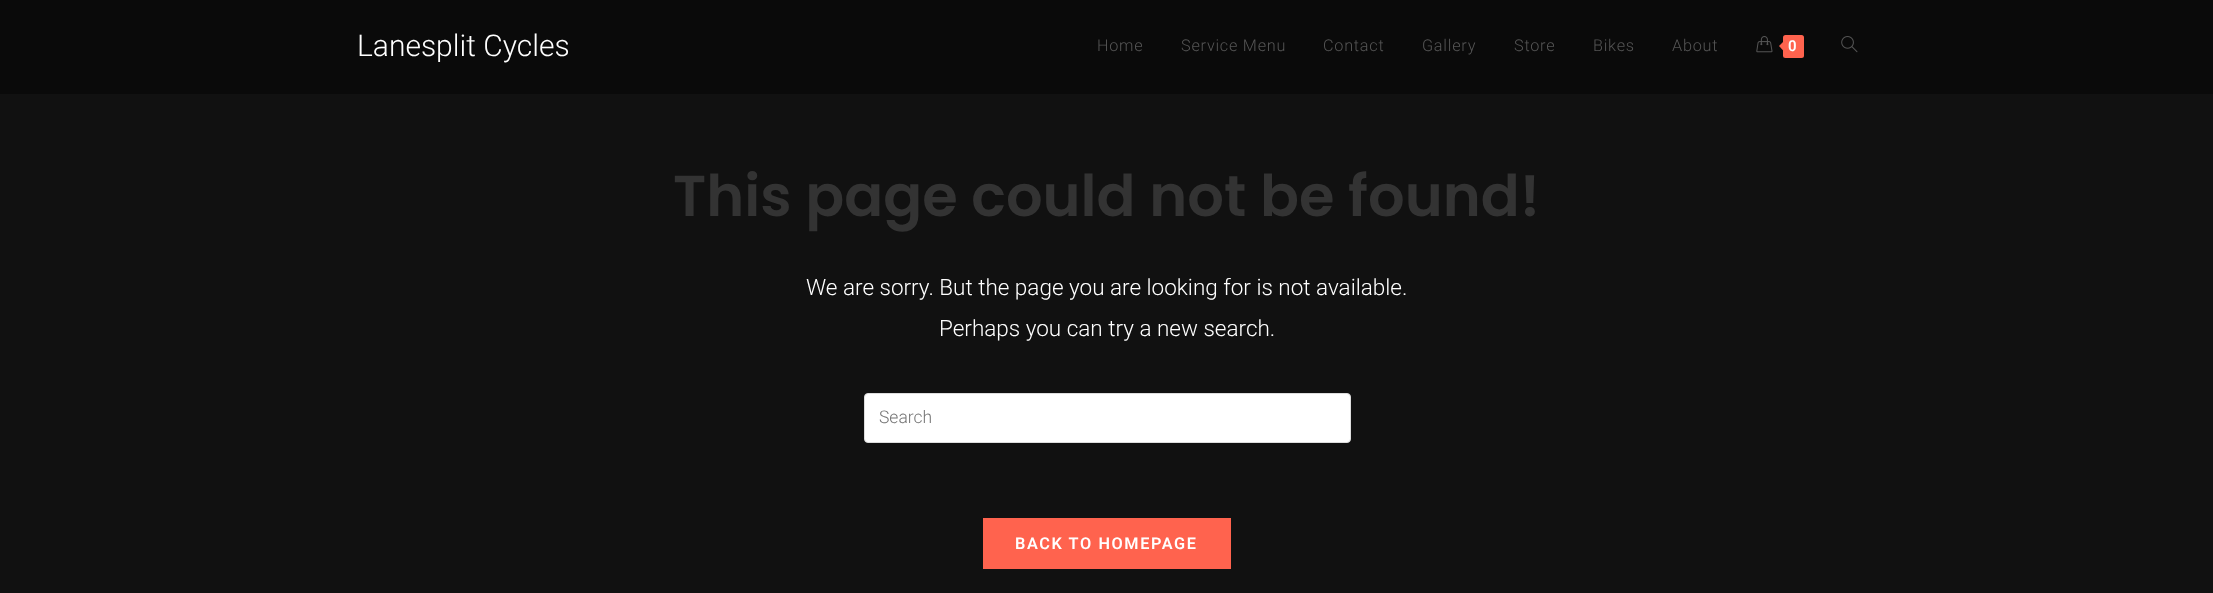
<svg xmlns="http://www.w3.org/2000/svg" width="2213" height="593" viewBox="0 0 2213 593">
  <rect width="100%" height="100%" fill="rgb(17,17,17)"/>
  <rect x="0" y="0" width="2213" height="94" fill="rgb(10,10,10)"/>
  <text x="357" y="56" font-family="Roboto" font-size="30" font-weight="300" fill="rgb(255,255,255)">Lanesplit Cycles</text>
  <g font-family="Roboto" font-size="16.25" font-weight="300" letter-spacing="0.75" fill="rgb(85,85,85)">
    <text x="1097" y="51">Home</text>
    <text x="1181" y="51">Service Menu</text>
    <text x="1323" y="51">Contact</text>
    <text x="1422" y="51">Gallery</text>
    <text x="1514" y="51">Store</text>
    <text x="1593" y="51">Bikes</text>
    <text x="1672" y="51">About</text>
  </g>
  <image x="1756" y="36" width="17" height="17" href="pic1.png"/>
  <rect x="1783" y="35" width="21" height="23" rx="2.5" fill="rgb(255,99,78)"/>
  <path d="M1785 40V52.5L1779 46Z" fill="rgb(255,99,78)"/>
  <text x="1788" y="51" font-family="Roboto" font-size="15" font-weight="600" fill="rgb(255,255,255)">0</text>
  <image x="1841" y="36" width="17" height="17" href="pic2.png"/>
  <text x="673" y="216" font-family="Poppins" font-size="57.5" font-weight="600" fill="rgb(51,51,51)">This page could not be found!</text>
  <g font-family="Roboto" font-size="22.5" font-weight="300" fill="rgb(255,255,255)">
    <text x="806" y="295">We are sorry. But the page you are looking for is not available.</text>
    <text x="939" y="336">Perhaps you can try a new search.</text>
  </g>
  <rect x="864.5" y="393.5" width="486" height="49" rx="3.5" fill="rgb(255,255,255)" stroke="rgb(221,221,221)"/>
  <text x="879" y="423" font-family="Roboto" font-size="17.5" font-weight="300" fill="rgb(117,117,117)">Search</text>
  <rect x="983" y="518" width="248" height="51" fill="rgb(255,99,78)"/>
  <text x="1015" y="549" font-family="Roboto" font-size="16.25" font-weight="600" letter-spacing="1.6" fill="rgb(255,255,255)">BACK TO HOMEPAGE</text>
</svg>
